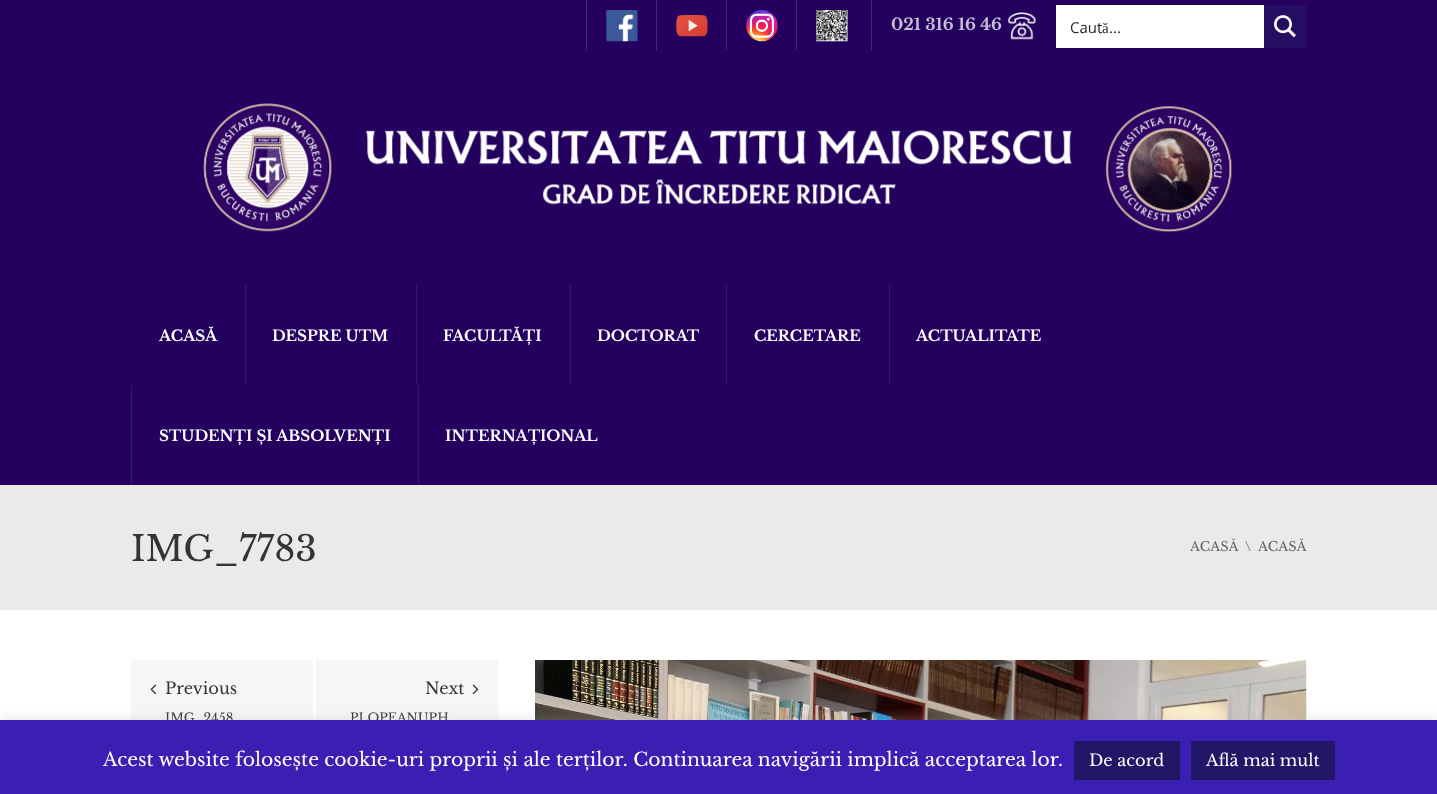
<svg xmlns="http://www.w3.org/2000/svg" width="1437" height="794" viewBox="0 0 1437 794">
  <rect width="100%" height="100%" fill="rgb(255,255,255)"/>
  <rect x="0" y="0" width="1437" height="485" fill="rgb(36,1,95)"/>
  <rect x="586" y="0" width="1" height="50" fill="rgb(69,39,119)"/>
  <image x="606" y="10" width="32" height="32" href="pic1.png"/>
  <rect x="656" y="0" width="1" height="50" fill="rgb(69,39,119)"/>
  <image x="676" y="15" width="32" height="22" href="pic2.png"/>
  <rect x="726" y="0" width="1" height="50" fill="rgb(69,39,119)"/>
  <image x="746" y="10" width="32" height="32" href="pic3.png"/>
  <rect x="796" y="0" width="1" height="50" fill="rgb(69,39,119)"/>
  <image x="816" y="10" width="32" height="32" href="pic4.png"/>
  <rect x="871" y="0" width="1" height="50" fill="rgb(69,39,119)"/>
  <text x="891" y="30" font-family="Libre Baskerville" font-size="16.25" font-weight="bold" fill="rgb(200,192,215)">021 316 16 46</text>
  <image x="1007" y="12" width="29" height="28" href="pic5.png"/>
  <rect x="1056" y="5" width="208" height="43" fill="rgb(255,255,255)"/>
  <text x="1070" y="33" font-family="Open Sans" font-size="15" fill="rgb(38,38,38)">Caut</text>
  <text x="1102" y="33" font-family="Liberation Serif" font-size="15" fill="rgb(38,38,38)">ă</text>
  <text x="1109" y="33" font-family="Open Sans" font-size="15" fill="rgb(38,38,38)">...</text>
  <rect x="1264" y="5" width="42" height="43" fill="rgb(37,14,98)"/>
  <image x="1274" y="15" width="22" height="23" href="pic6.png"/>
  <image x="203" y="103" width="1030" height="130" href="pic7.png"/>
  <text x="159" y="341" font-family="Libre Baskerville" font-size="15" font-weight="bold" fill="rgb(255,255,255)">ACASĂ</text>
  <rect x="245" y="285" width="1" height="100" fill="rgb(58,26,111)"/>
  <text x="272" y="341" font-family="Libre Baskerville" font-size="15" font-weight="bold" fill="rgb(255,255,255)">DESPRE UTM</text>
  <rect x="416" y="285" width="1" height="100" fill="rgb(58,26,111)"/>
  <text x="443" y="341" font-family="Libre Baskerville" font-size="15" font-weight="bold" fill="rgb(255,255,255)">FACULTĂȚI</text>
  <rect x="570" y="285" width="1" height="100" fill="rgb(58,26,111)"/>
  <text x="597" y="341" font-family="Libre Baskerville" font-size="15" font-weight="bold" fill="rgb(255,255,255)">DOCTORAT</text>
  <rect x="726" y="285" width="1" height="100" fill="rgb(58,26,111)"/>
  <text x="754" y="341" font-family="Libre Baskerville" font-size="15" font-weight="bold" fill="rgb(255,255,255)">CERCETARE</text>
  <rect x="889" y="285" width="1" height="100" fill="rgb(58,26,111)"/>
  <text x="916" y="341" font-family="Libre Baskerville" font-size="15" font-weight="bold" fill="rgb(255,255,255)">ACTUALITATE</text>
  <rect x="131" y="385" width="1" height="100" fill="rgb(58,26,111)"/>
  <text x="159" y="441" font-family="Libre Baskerville" font-size="15" font-weight="bold" fill="rgb(255,255,255)">STUDENȚI ȘI ABSOLVENȚI</text>
  <rect x="418" y="385" width="1" height="100" fill="rgb(58,26,111)"/>
  <text x="445" y="441" font-family="Libre Baskerville" font-size="15" font-weight="bold" fill="rgb(255,255,255)">INTERNAȚIONAL</text>
  <rect x="0" y="485" width="1437" height="125" fill="rgb(234,234,234)"/>
  <text x="131" y="561" font-family="Libre Baskerville" font-size="35" fill="rgb(52,52,52)">IMG_7783</text>
  <g font-family="Libre Baskerville" font-size="13" fill="rgb(102,102,102)">
    <text x="1190" y="551">ACASĂ</text>
    <text x="1245" y="551">\</text>
    <text x="1258" y="551">ACASĂ</text>
  </g>
  <rect x="131" y="660" width="367" height="60" fill="rgb(246,246,246)"/>
  <rect x="313" y="660" width="3" height="60" fill="rgb(255,255,255)"/>
  <image x="150" y="684" width="7" height="11" href="pic8.png"/>
  <text x="165" y="694" font-family="Libre Baskerville" font-size="16.25" fill="rgb(52,52,52)">Previous</text>
  <text x="165" y="722" font-family="Libre Baskerville" font-size="12.5" fill="rgb(52,52,52)">IMG_2458</text>
  <text x="425" y="694" font-family="Libre Baskerville" font-size="16.25" fill="rgb(52,52,52)">Next</text>
  <text x="350" y="722" font-family="Libre Baskerville" font-size="12.5" fill="rgb(52,52,52)">PLOPEANUPH</text>
  <image x="472" y="684" width="7" height="11" href="pic9.png"/>
  <image x="535" y="660" width="772" height="60" href="pic10.png"/>
  <rect x="0" y="719" width="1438" height="75" fill="rgba(172,171,171,0.3)" filter="blur(6px)"/>
  <rect x="0" y="720" width="1437" height="74" fill="rgb(59,31,179)"/>
  <text x="103" y="766" font-family="Libre Baskerville" font-size="18.75" fill="rgb(255,255,255)">Acest website folosește cookie-uri proprii și ale terților. Continuarea navigării implică acceptarea lor.</text>
  <rect x="1074" y="741" width="106" height="39" fill="rgb(34,22,102)"/>
  <text x="1089" y="766" font-family="Libre Baskerville" font-size="16.25" fill="rgb(255,255,255)">De acord</text>
  <rect x="1191" y="741" width="144" height="39" fill="rgb(34,22,102)"/>
  <text x="1206" y="766" font-family="Libre Baskerville" font-size="16.25" fill="rgb(255,255,255)">Află mai mult</text>
</svg>
